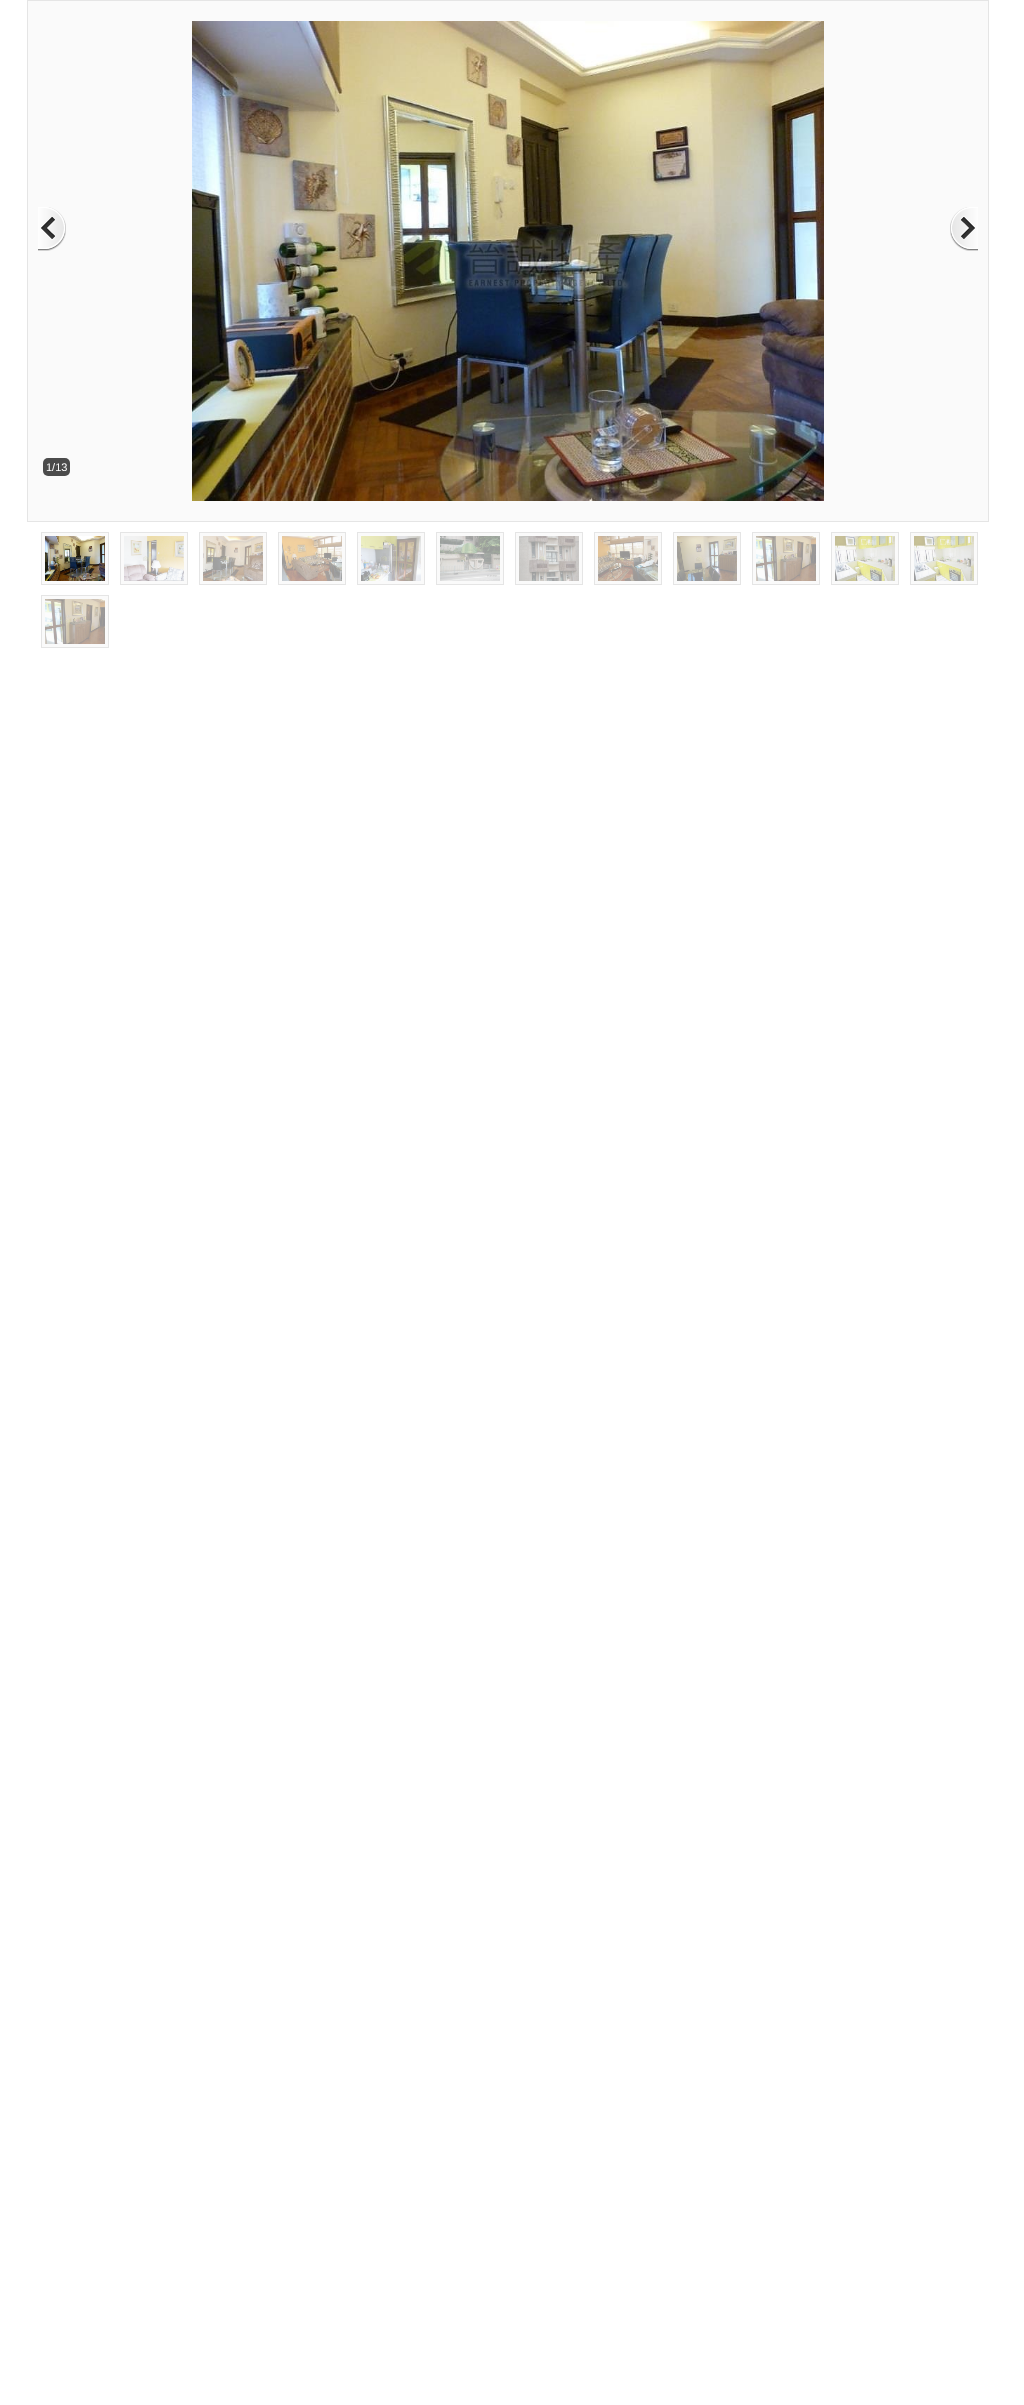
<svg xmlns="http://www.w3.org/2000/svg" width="1024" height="2405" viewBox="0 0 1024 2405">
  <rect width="100%" height="100%" fill="rgb(255,255,255)"/>
  <rect x="27.5" y="0.5" width="961" height="521" fill="rgb(250,250,250)" stroke="rgb(229,229,229)"/>
  <image x="38" y="207" width="28" height="44" href="pic1.png"/>
  <image x="950" y="207" width="28" height="44" href="pic2.png"/>
  <rect x="43" y="458" width="27" height="18" rx="5" fill="rgb(75,75,75)"/>
  <text x="46" y="471" font-family="Liberation Sans" font-size="11" fill="rgb(255,255,255)">1/13</text>
  <image x="192" y="21" width="632" height="480" href="pic3.png"/>
  <rect x="41.5" y="532.5" width="67" height="52" fill="rgb(250,250,250)" stroke="rgb(229,229,229)"/>
  <image x="45" y="536" width="60" height="45" href="pic4.png"/>
  <rect x="120.5" y="532.5" width="67" height="52" fill="rgb(250,250,250)" stroke="rgb(229,229,229)"/>
  <image x="124" y="536" width="60" height="45" href="pic5.png"/>
  <rect x="199.5" y="532.5" width="67" height="52" fill="rgb(250,250,250)" stroke="rgb(229,229,229)"/>
  <image x="203" y="536" width="60" height="45" href="pic6.png"/>
  <rect x="278.5" y="532.5" width="67" height="52" fill="rgb(250,250,250)" stroke="rgb(229,229,229)"/>
  <image x="282" y="536" width="60" height="45" href="pic7.png"/>
  <rect x="357.5" y="532.5" width="67" height="52" fill="rgb(250,250,250)" stroke="rgb(229,229,229)"/>
  <image x="361" y="536" width="60" height="45" href="pic8.png"/>
  <rect x="436.5" y="532.5" width="67" height="52" fill="rgb(250,250,250)" stroke="rgb(229,229,229)"/>
  <image x="440" y="536" width="60" height="45" href="pic9.png"/>
  <rect x="515.5" y="532.5" width="67" height="52" fill="rgb(250,250,250)" stroke="rgb(229,229,229)"/>
  <image x="519" y="536" width="60" height="45" href="pic10.png"/>
  <rect x="594.5" y="532.5" width="67" height="52" fill="rgb(250,250,250)" stroke="rgb(229,229,229)"/>
  <image x="598" y="536" width="60" height="45" href="pic11.png"/>
  <rect x="673.5" y="532.5" width="67" height="52" fill="rgb(250,250,250)" stroke="rgb(229,229,229)"/>
  <image x="677" y="536" width="60" height="45" href="pic12.png"/>
  <rect x="752.5" y="532.5" width="67" height="52" fill="rgb(250,250,250)" stroke="rgb(229,229,229)"/>
  <image x="756" y="536" width="60" height="45" href="pic13.png"/>
  <rect x="831.5" y="532.5" width="67" height="52" fill="rgb(250,250,250)" stroke="rgb(229,229,229)"/>
  <image x="835" y="536" width="60" height="45" href="pic14.png"/>
  <rect x="910.5" y="532.5" width="67" height="52" fill="rgb(250,250,250)" stroke="rgb(229,229,229)"/>
  <image x="914" y="536" width="60" height="45" href="pic15.png"/>
  <rect x="41.5" y="595.5" width="67" height="52" fill="rgb(250,250,250)" stroke="rgb(229,229,229)"/>
  <image x="45" y="599" width="60" height="45" href="pic16.png"/>
</svg>
